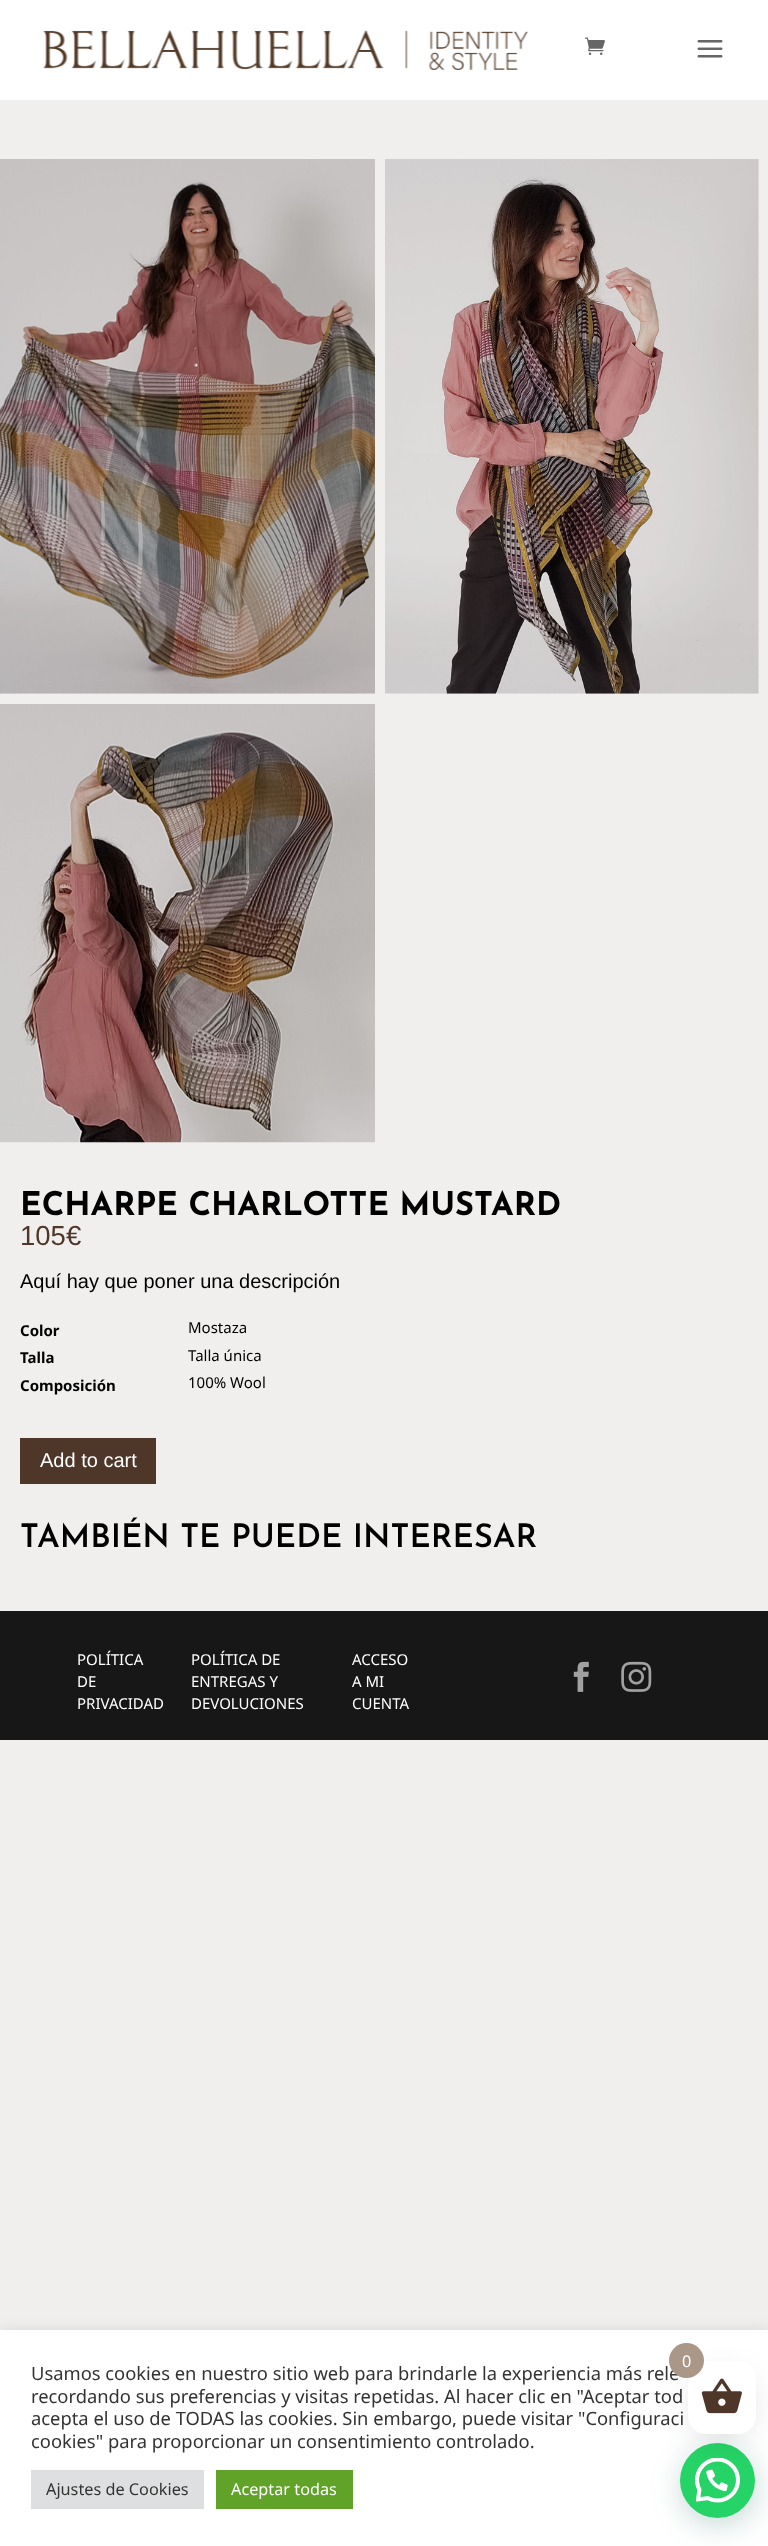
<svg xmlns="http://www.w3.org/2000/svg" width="768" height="2546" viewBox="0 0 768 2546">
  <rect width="100%" height="100%" fill="rgb(241,239,237)"/>
  <rect x="0" y="0" width="768" height="100" fill="rgb(255,255,255)"/>
  <image x="43" y="30" width="485" height="40" href="pic1.png"/>
  <image x="585" y="37" width="20" height="18" href="pic2.png"/>
  <image x="697" y="40" width="26" height="18" href="pic3.png"/>
  <image x="0" y="159" width="375" height="535" href="pic4.png"/>
  <image x="385" y="159" width="374" height="535" href="pic5.png"/>
  <image x="0" y="704" width="375" height="439" href="pic6.png"/>
  <text x="20" y="1215" font-family="Josefin Sans" font-size="32.5" font-weight="100" fill="rgb(0,0,0)">ECHARPE CHARLOTTE MUSTARD</text>
  <text x="20" y="1245" font-family="Liberation Sans" font-size="27.5" fill="rgb(78,54,41)">105€</text>
  <text x="20" y="1288" font-family="Liberation Sans" font-size="20" fill="rgb(0,0,0)">Aquí hay que poner una descripción</text>
  <text x="20" y="1336" font-family="Noto Sans" font-size="15" font-weight="bold" fill="rgb(0,0,0)">Color</text>
  <text x="188" y="1333" font-family="Noto Sans" font-size="15" fill="rgb(0,0,0)">Mostaza</text>
  <text x="20" y="1363" font-family="Noto Sans" font-size="15" font-weight="bold" fill="rgb(0,0,0)">Talla</text>
  <text x="188" y="1361" font-family="Noto Sans" font-size="15" fill="rgb(0,0,0)">Talla única</text>
  <text x="20" y="1391" font-family="Noto Sans" font-size="15" font-weight="bold" fill="rgb(0,0,0)">Composición</text>
  <text x="188" y="1388" font-family="Noto Sans" font-size="15" fill="rgb(0,0,0)">100% Wool</text>
  <rect x="20" y="1438" width="136" height="46" fill="rgb(78,54,41)"/>
  <text x="40" y="1467" font-family="Liberation Sans" font-size="20" fill="rgb(255,255,255)">Add to cart</text>
  <text x="20" y="1547" font-family="'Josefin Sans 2'" font-size="32.5" font-weight="100" fill="rgb(0,0,0)">TAMBIÉN TE PUEDE INTERESAR</text>
  <rect x="0" y="1611" width="768" height="129" fill="rgb(23,23,23)"/>
  <g font-family="Noto Sans" font-size="15" fill="rgb(255,255,255)">
    <text>
      <tspan x="77" y="1665">POLÍTICA</tspan>
      <tspan x="77" y="1687">DE</tspan>
      <tspan x="77" y="1709">PRIVACIDAD</tspan>
    </text>
    <text>
      <tspan x="191" y="1665">POLÍTICA DE</tspan>
      <tspan x="191" y="1687">ENTREGAS Y</tspan>
      <tspan x="191" y="1709">DEVOLUCIONES</tspan>
    </text>
    <text>
      <tspan x="352" y="1665">ACCESO</tspan>
      <tspan x="352" y="1687">A MI</tspan>
      <tspan x="352" y="1709">CUENTA</tspan>
    </text>
  </g>
  <image x="573" y="1661" width="16" height="31" href="pic7.png"/>
  <image x="621" y="1661" width="31" height="31" href="pic8.png"/>
  <rect x="0" y="2329" width="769" height="216" fill="rgba(172,171,171,0.3)" filter="blur(6px)"/>
  <rect x="0" y="2330" width="768" height="216" fill="rgb(255,255,255)"/>
  <rect x="681" y="2450" width="75" height="75" rx="37.5" fill="rgba(7,94,84,0.24)" filter="blur(15px)"/>
  <circle cx="717.5" cy="2480.5" r="37.5" fill="rgb(37,211,102)"/>
  <image x="695" y="2458" width="45" height="45" href="pic10.png"/>
  <rect x="704" y="2386" width="36" height="40" rx="1" fill="rgba(0,0,0,0.3)" filter="blur(19px)"/>
  <rect x="688" y="2361" width="68" height="73" rx="18" fill="rgb(255,255,255)"/>
  <text x="31" y="2380" font-family="Noto Sans" font-size="18.35" fill="rgb(51,51,51)">Usamos cookies en nuestro sitio web para brindarle la experiencia más rele</text>
  <circle cx="686.5" cy="2360.5" r="17.5" fill="rgb(171,151,135)"/>
  <text x="682" y="2367" font-family="Noto Sans" font-size="16.25" fill="rgb(255,255,255)">0</text>
  <image x="701" y="2378" width="41" height="36" href="pic9.png"/>
  <g font-family="Noto Sans" font-size="18.35" fill="rgb(51,51,51)">
    <text>
      <tspan x="31" y="2403">recordando sus preferencias y visitas repetidas. Al hacer clic en "Aceptar tod</tspan>
      <tspan x="31" y="2425">acepta el uso de TODAS las cookies. Sin embargo, puede visitar "Configuraci</tspan>
      <tspan x="31" y="2448">cookies" para proporcionar un consentimiento controlado.</tspan>
    </text>
  </g>
  <rect x="31" y="2470" width="173" height="39" fill="rgb(222,223,224)"/>
  <text x="46" y="2495" font-family="Noto Sans" font-size="16.25" fill="rgb(51,51,51)">Ajustes de Cookies</text>
  <rect x="216" y="2470" width="137" height="39" fill="rgb(97,162,41)"/>
  <text x="231" y="2495" font-family="Noto Sans" font-size="16.25" fill="rgb(255,255,255)">Aceptar todas</text>
</svg>
